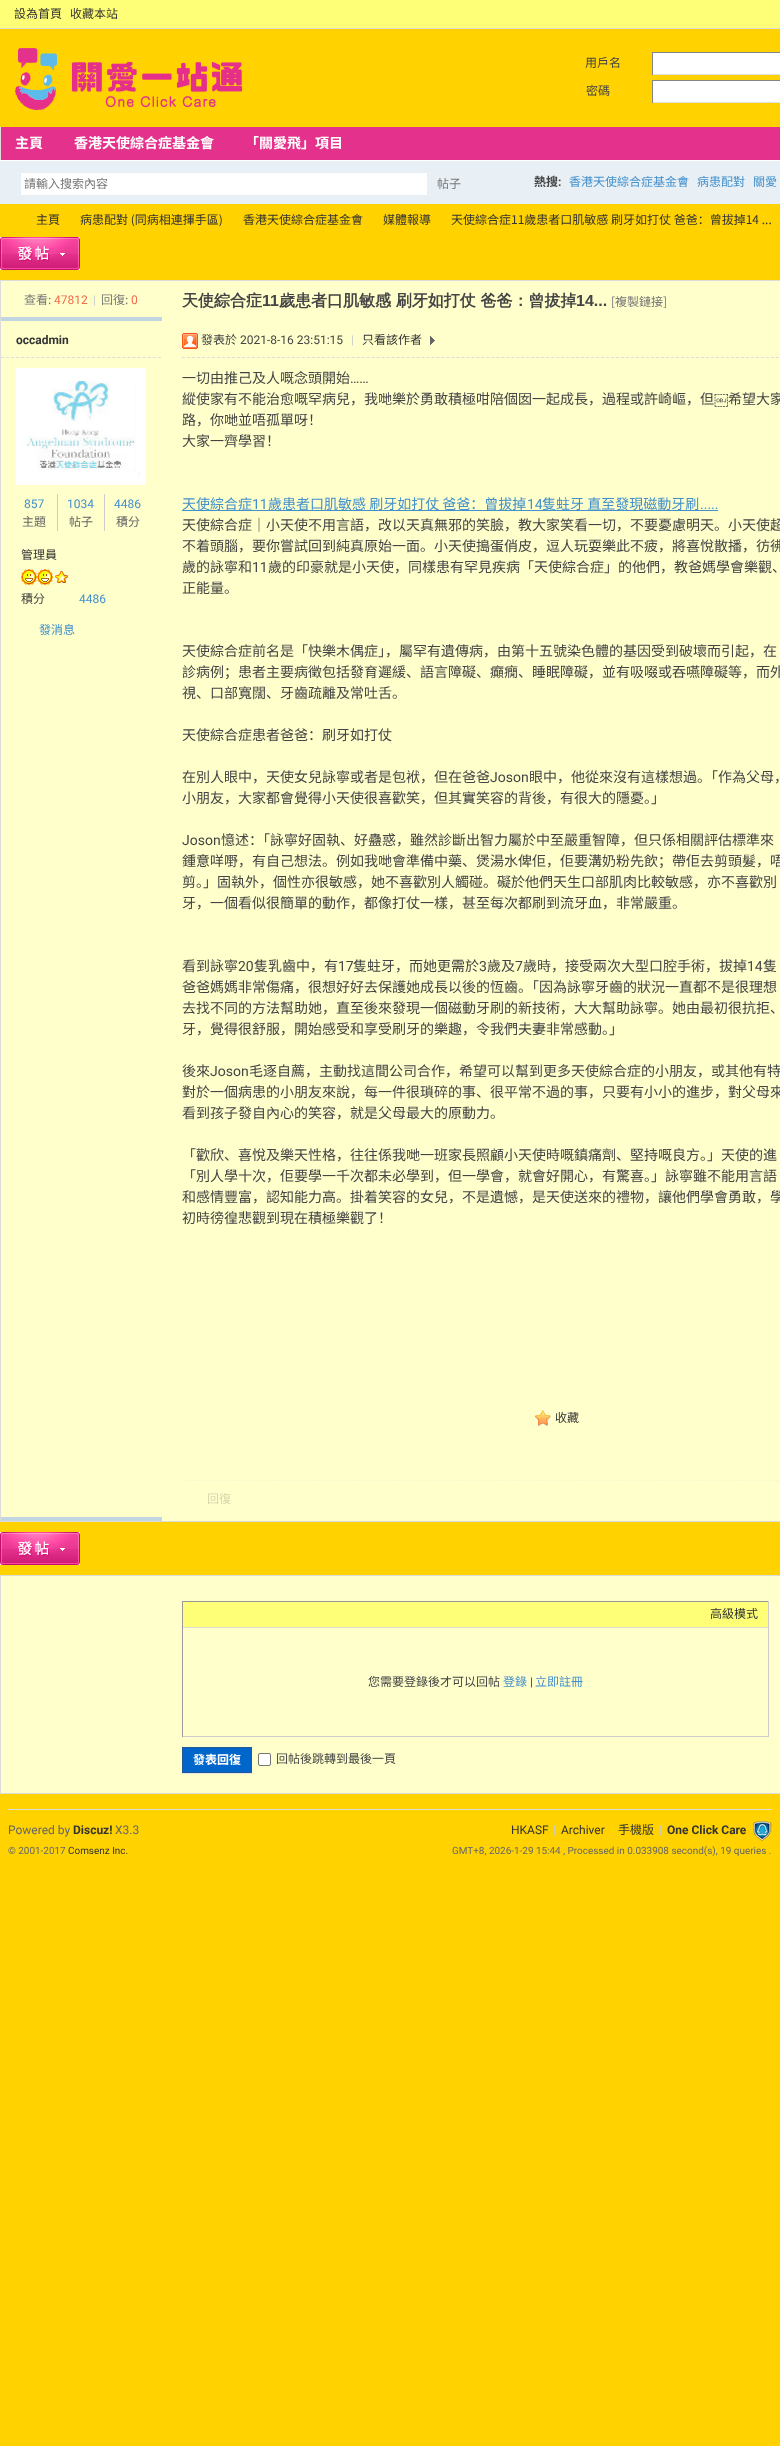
<svg xmlns="http://www.w3.org/2000/svg" width="780" height="2446" viewBox="0 0 780 2446">
  <rect width="100%" height="100%" fill="rgb(255,210,0)"/>
  <rect x="0" y="0" width="780" height="28" fill="rgb(255,255,119)"/>
  <rect x="0" y="28" width="780" height="1" fill="rgb(220,220,220)"/>
  <g font-family="Noto Sans SC" font-size="12" fill="rgb(51,51,51)">
    <text x="14" y="18">設為首頁</text>
    <text x="70" y="18">收藏本站</text>
  </g>
  <image x="15" y="48" width="227" height="62" href="pic1.png"/>
  <text x="585" y="67" font-family="Noto Sans SC" font-size="12" fill="rgb(68,68,68)">用戶名</text>
  <rect x="653" y="53" width="127" height="21" fill="rgb(255,255,255)"/>
  <rect x="652" y="52" width="128" height="1" fill="rgb(132,132,132)"/>
  <rect x="652" y="74" width="128" height="1" fill="rgb(224,224,224)"/>
  <rect x="652" y="52" width="1" height="23" fill="rgb(132,132,132)"/>
  <text x="586" y="95" font-family="Noto Sans SC" font-size="12" fill="rgb(68,68,68)">密碼</text>
  <rect x="653" y="81" width="127" height="21" fill="rgb(255,255,255)"/>
  <rect x="652" y="80" width="128" height="1" fill="rgb(132,132,132)"/>
  <rect x="652" y="102" width="128" height="1" fill="rgb(224,224,224)"/>
  <rect x="652" y="80" width="1" height="23" fill="rgb(132,132,132)"/>
  <rect x="1" y="127" width="779" height="33" fill="rgb(228,49,139)"/>
  <rect x="0" y="127" width="1" height="33" fill="rgb(220,220,220)"/>
  <g font-family="Noto Sans SC" font-size="14" font-weight="bold" fill="rgb(255,255,255)">
    <text x="15" y="148">主頁</text>
    <text x="74" y="148">香港天使綜合症基金會</text>
    <text x="245" y="148">「關愛飛」項目</text>
  </g>
  <rect x="0" y="161" width="780" height="43" fill="rgb(232,239,245)"/>
  <rect x="0" y="160" width="780" height="1" fill="rgb(255,255,255)"/>
  <rect x="21" y="173" width="406" height="22" fill="rgb(255,255,255)"/>
  <g font-family="Noto Sans SC" font-size="12" fill="rgb(119,119,119)">
    <text x="24" y="188">請輸入搜索內容</text>
    <text x="437" y="188">帖子</text>
  </g>
  <text x="534" y="186" font-family="Noto Sans SC" font-size="12" font-weight="bold" fill="rgb(68,68,68)">熱搜</text>
  <text x="558" y="186" font-family="Roboto" font-size="12" font-weight="bold" fill="rgb(68,68,68)">:</text>
  <g font-family="Noto Sans SC" font-size="12" fill="rgb(66,144,204)">
    <text x="569" y="186">香港天使綜合症基金會</text>
    <text x="697" y="186">病患配對</text>
    <text x="753" y="186">關愛</text>
  </g>
  <g font-family="Noto Sans SC" font-size="12" fill="rgb(51,51,51)">
    <text x="36" y="224">主頁</text>
    <text x="80" y="224">病患配對 (同病相連揮手區)</text>
    <text x="243" y="224">香港天使綜合症基金會</text>
    <text x="383" y="224">媒體報導</text>
    <text x="451" y="224">天使綜合症11歲患者口肌敏感 刷牙如打仗 爸爸：曾拔掉14 ...</text>
  </g>
  <image x="0" y="237" width="80" height="33" href="pic2.png"/>
  <rect x="162" y="281" width="618" height="1240" fill="rgb(255,255,204)"/>
  <rect x="0.5" y="280.5" width="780" height="1241" fill="none" stroke="rgb(220,220,220)"/>
  <rect x="1" y="281" width="161" height="36" fill="rgb(255,255,204)"/>
  <text x="24" y="304" font-family="Noto Sans SC" font-size="12" fill="rgb(119,119,119)">查看:</text>
  <text x="54" y="304" font-family="Roboto" font-size="12" fill="rgb(242,108,79)">47812</text>
  <text x="93" y="304" font-family="Roboto" font-size="12" fill="rgb(204,204,204)">|</text>
  <text x="101" y="304" font-family="Noto Sans SC" font-size="12" fill="rgb(119,119,119)">回復:</text>
  <text x="131" y="304" font-family="Roboto" font-size="12" fill="rgb(242,108,79)">0</text>
  <text x="182" y="306" font-family="WenQuanYi Zen Hei" font-size="16" font-weight="bold" fill="rgb(68,68,68)">天使綜合症</text>
  <text x="262" y="306" font-family="Liberation Sans" font-size="16" font-weight="bold" fill="rgb(68,68,68)">11</text>
  <text x="279" y="306" font-family="WenQuanYi Zen Hei" font-size="16" font-weight="bold" fill="rgb(68,68,68)">歲患者口肌敏感 刷牙如打仗 爸爸：曾拔掉</text>
  <text x="576" y="306" font-family="Liberation Sans" font-size="16" font-weight="bold" fill="rgb(68,68,68)">14...</text>
  <text x="611" y="306" font-family="Noto Sans SC" font-size="12" fill="rgb(119,119,119)">[複製鏈接]</text>
  <rect x="1" y="317" width="161" height="4" fill="rgb(194,213,227)"/>
  <rect x="1" y="321" width="161" height="1196" fill="rgb(255,255,204)"/>
  <path d="M1 357.5H161" fill="none" stroke="rgb(220,220,220)" stroke-dasharray="3 2.06"/>
  <text x="16" y="344" font-family="Roboto" font-size="12" font-weight="bold" fill="rgb(51,51,51)">occadmin</text>
  <rect x="16" y="368" width="130" height="117" fill="rgb(255,255,255)"/>
  <image x="21" y="380" width="120" height="97" href="pic3.png"/>
  <rect x="57" y="494" width="1" height="37" fill="rgb(204,204,204)"/>
  <text x="24" y="508" font-family="Roboto" font-size="12" fill="rgb(66,144,204)">857</text>
  <text x="22" y="526" font-family="Noto Sans SC" font-size="12" fill="rgb(102,102,102)">主題</text>
  <rect x="104" y="494" width="1" height="37" fill="rgb(204,204,204)"/>
  <text x="67" y="508" font-family="Roboto" font-size="12" fill="rgb(66,144,204)">1034</text>
  <text x="69" y="526" font-family="Noto Sans SC" font-size="12" fill="rgb(102,102,102)">帖子</text>
  <text x="114" y="508" font-family="Roboto" font-size="12" fill="rgb(66,144,204)">4486</text>
  <text x="116" y="526" font-family="Noto Sans SC" font-size="12" fill="rgb(102,102,102)">積分</text>
  <text x="21" y="559" font-family="Noto Sans SC" font-size="12" fill="rgb(51,51,51)">管理員</text>
  <image x="21" y="569" width="16" height="16" href="pic4.png"/>
  <image x="37" y="569" width="16" height="16" href="pic4.png"/>
  <image x="55" y="571" width="13" height="12" href="pic5.png"/>
  <text x="21" y="603" font-family="Noto Sans SC" font-size="12" fill="rgb(68,68,68)">積分</text>
  <text x="79" y="603" font-family="Roboto" font-size="12" fill="rgb(66,144,204)">4486</text>
  <text x="39" y="634" font-family="Noto Sans SC" font-size="12" fill="rgb(66,144,204)">發消息</text>
  <path d="M182 357.5H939" fill="none" stroke="rgb(220,220,220)" stroke-dasharray="3 1.99"/>
  <image x="182" y="333" width="16" height="16" href="pic6.png"/>
  <text x="201" y="344" font-family="Noto Sans SC" font-size="12" fill="rgb(68,68,68)">發表於</text>
  <text x="240" y="344" font-family="Roboto" font-size="12" fill="rgb(68,68,68)">2021-8-16 23:51:15</text>
  <text x="351" y="344" font-family="Roboto" font-size="12" fill="rgb(204,204,204)">|</text>
  <text x="362" y="344" font-family="Noto Sans SC" font-size="12" fill="rgb(51,51,51)">只看該作者</text>
  <image x="430" y="336" width="5" height="9" href="pic7.png"/>
  <text x="182" y="383" font-family="Noto Sans SC" font-size="14" fill="rgb(68,68,68)">一切由推己及人嘅念頭開始</text>
  <text x="350" y="383" font-family="Roboto" font-size="14" fill="rgb(68,68,68)">……</text>
  <text x="182" y="404" font-family="Noto Sans SC" font-size="14" fill="rgb(68,68,68)">縱使家有不能治愈嘅罕病兒，我哋樂於勇敢積極咁陪個囡一起成長，過程或許崎嶇，但</text>
  <text x="714" y="404" font-family="Roboto" font-size="14" fill="rgb(68,68,68)">￼</text>
  <g font-family="Noto Sans SC" font-size="14" fill="rgb(68,68,68)">
    <text x="728" y="404">希望大家</text>
    <text>
      <tspan x="182" y="425">路，你哋並唔孤單呀！</tspan>
      <tspan x="182" y="446">大家一齊學習！</tspan>
    </text>
  </g>
  <rect x="182" y="510" width="536" height="1" fill="rgb(66,144,204)"/>
  <text x="182" y="509" font-family="Noto Sans SC" font-size="14" fill="rgb(66,144,204)">天使綜合症</text>
  <text x="252" y="509" font-family="Roboto" font-size="14" fill="rgb(66,144,204)">11</text>
  <text x="268" y="509" font-family="Noto Sans SC" font-size="14" fill="rgb(66,144,204)">歲患者口肌敏感 刷牙如打仗 爸爸：曾拔掉</text>
  <text x="527" y="509" font-family="Roboto" font-size="14" fill="rgb(66,144,204)">14</text>
  <text x="542" y="509" font-family="Noto Sans SC" font-size="14" fill="rgb(66,144,204)">隻蛀牙 直至發現磁動牙刷</text>
  <text x="700" y="509" font-family="Roboto" font-size="14" fill="rgb(66,144,204)">.....</text>
  <g font-family="Noto Sans SC" font-size="14" fill="rgb(68,68,68)">
    <text>
      <tspan x="182" y="530">天使綜合症｜小天使不用言語，改以天真無邪的笑臉，教大家笑看一切，不要憂慮明天。小天使超</tspan>
      <tspan x="182" y="551">不着頭腦，要你嘗試回到純真原始一面。小天使搗蛋俏皮，逗人玩耍樂此不疲，將喜悅散播，彷彿</tspan>
      <tspan x="182" y="572">歲的詠寧和</tspan>
    </text>
  </g>
  <text x="252" y="572" font-family="Roboto" font-size="14" fill="rgb(68,68,68)">11</text>
  <g font-family="Noto Sans SC" font-size="14" fill="rgb(68,68,68)">
    <text x="268" y="572">歲的印豪就是小天使，同樣患有罕見疾病「天使綜合症」的他們，教爸媽學會樂觀、</text>
    <text x="182" y="593">正能量。</text>
    <text>
      <tspan x="182" y="656">天使綜合症前名是「快樂木偶症」，屬罕有遺傳病，由第十五號染色體的基因受到破壞而引起，在</tspan>
      <tspan x="182" y="677">診病例；患者主要病徵包括發育遲緩、語言障礙、癲癇、睡眠障礙，並有吸啜或吞嚥障礙等，而外</tspan>
      <tspan x="182" y="698">視、口部寬闊、牙齒疏離及常吐舌。</tspan>
    </text>
    <text x="182" y="740">天使綜合症患者爸爸：刷牙如打仗</text>
    <text x="182" y="782">在別人眼中，天使女兒詠寧或者是包袱，但在爸爸</text>
  </g>
  <text x="490" y="782" font-family="Roboto" font-size="14" fill="rgb(68,68,68)">Joson</text>
  <g font-family="Noto Sans SC" font-size="14" fill="rgb(68,68,68)">
    <text x="529" y="782">眼中，他從來沒有這樣想過。「作為父母，</text>
    <text x="182" y="803">小朋友，大家都會覺得小天使很喜歡笑，但其實笑容的背後，有很大的隱憂。」</text>
  </g>
  <text x="182" y="845" font-family="Roboto" font-size="14" fill="rgb(68,68,68)">Joson</text>
  <g font-family="Noto Sans SC" font-size="14" fill="rgb(68,68,68)">
    <text x="221" y="845">憶述：「詠寧好固執、好蠱惑，雖然診斷出智力屬於中至嚴重智障，但只係相關評估標準來</text>
    <text>
      <tspan x="182" y="866">鍾意咩嘢，有自己想法。例如我哋會準備中藥、煲湯水俾佢，佢要溝奶粉先飲；帶佢去剪頭髮，唔</tspan>
      <tspan x="182" y="887">剪。」固執外，個性亦很敏感，她不喜歡別人觸碰。礙於他們天生口部肌肉比較敏感，亦不喜歡別</tspan>
      <tspan x="182" y="908">牙，一個看似很簡單的動作，都像打仗一樣，甚至每次都刷到流牙血，非常嚴重。</tspan>
    </text>
    <text x="182" y="971">看到詠寧</text>
  </g>
  <text x="238" y="971" font-family="Roboto" font-size="14" fill="rgb(68,68,68)">20</text>
  <text x="254" y="971" font-family="Noto Sans SC" font-size="14" fill="rgb(68,68,68)">隻乳齒中，有</text>
  <text x="338" y="971" font-family="Roboto" font-size="14" fill="rgb(68,68,68)">17</text>
  <text x="353" y="971" font-family="Noto Sans SC" font-size="14" fill="rgb(68,68,68)">隻蛀牙，而她更需於</text>
  <text x="479" y="971" font-family="Roboto" font-size="14" fill="rgb(68,68,68)">3</text>
  <text x="487" y="971" font-family="Noto Sans SC" font-size="14" fill="rgb(68,68,68)">歲及</text>
  <text x="515" y="971" font-family="Roboto" font-size="14" fill="rgb(68,68,68)">7</text>
  <text x="523" y="971" font-family="Noto Sans SC" font-size="14" fill="rgb(68,68,68)">歲時，接受兩次大型口腔手術，拔掉</text>
  <text x="747" y="971" font-family="Roboto" font-size="14" fill="rgb(68,68,68)">14</text>
  <g font-family="Noto Sans SC" font-size="14" fill="rgb(68,68,68)">
    <text x="763" y="971">隻</text>
    <text>
      <tspan x="182" y="992">爸爸媽媽非常傷痛，很想好好去保護她成長以後的恆齒。「因為詠寧牙齒的狀況一直都不是很理想</tspan>
      <tspan x="182" y="1013">去找不同的方法幫助她，直至後來發現一個磁動牙刷的新技術，大大幫助詠寧。她由最初很抗拒、</tspan>
      <tspan x="182" y="1034">牙，覺得很舒服，開始感受和享受刷牙的樂趣，令我們夫妻非常感動。」</tspan>
    </text>
    <text x="182" y="1076">後來</text>
  </g>
  <text x="210" y="1076" font-family="Roboto" font-size="14" fill="rgb(68,68,68)">Joson</text>
  <g font-family="Noto Sans SC" font-size="14" fill="rgb(68,68,68)">
    <text x="249" y="1076">毛逐自薦，主動找這間公司合作，希望可以幫到更多天使綜合症的小朋友，或其他有特</text>
    <text>
      <tspan x="182" y="1097">對於一個病患的小朋友來說，每一件很瑣碎的事、很平常不過的事，只要有小小的進步，對父母來</tspan>
      <tspan x="182" y="1118">看到孩子發自內心的笑容，就是父母最大的原動力。</tspan>
    </text>
    <text>
      <tspan x="182" y="1160">「歡欣、喜悅及樂天性格，往往係我哋一班家長照顧小天使時嘅鎮痛劑、堅持嘅良方。」天使的進</tspan>
      <tspan x="182" y="1181">「別人學十次，佢要學一千次都未必學到，但一學會，就會好開心，有驚喜。」詠寧雖不能用言語</tspan>
      <tspan x="182" y="1202">和感情豐富，認知能力高。掛着笑容的女兒，不是遺憾，是天使送來的禮物，讓他們學會勇敢，學</tspan>
      <tspan x="182" y="1223">初時徬徨悲觀到現在積極樂觀了！</tspan>
    </text>
  </g>
  <image x="535" y="1410" width="16" height="16" href="pic8.png"/>
  <text x="555" y="1422" font-family="Noto Sans SC" font-size="12" fill="rgb(51,51,51)">收藏</text>
  <path d="M182 1480.5H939" fill="none" stroke="rgb(248,248,207)" stroke-dasharray="3 1.99"/>
  <text x="207" y="1503" font-family="Noto Sans SC" font-size="12" fill="rgb(214,214,173)">回復</text>
  <rect x="161" y="1517" width="1" height="5" fill="rgb(194,213,227)"/>
  <rect x="1" y="1517" width="161" height="4" fill="rgb(194,213,227)"/>
  <image x="0" y="1532" width="80" height="33" href="pic2.png"/>
  <rect x="162" y="1576" width="618" height="217" fill="rgb(255,255,204)"/>
  <rect x="0.5" y="1575.5" width="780" height="218" fill="none" stroke="rgb(220,220,220)"/>
  <rect x="161" y="1793" width="1" height="1" fill="rgb(194,213,227)"/>
  <rect x="1" y="1576" width="161" height="217" fill="rgb(255,255,204)"/>
  <rect x="182" y="1601" width="587" height="1" fill="rgb(153,153,153)"/>
  <rect x="768" y="1601" width="1" height="136" fill="rgb(204,204,204)"/>
  <rect x="182" y="1736" width="587" height="1" fill="rgb(204,204,204)"/>
  <rect x="182" y="1601" width="1" height="136" fill="rgb(153,153,153)"/>
  <rect x="183" y="1602" width="585" height="25" fill="rgb(255,255,119)"/>
  <rect x="183" y="1627" width="585" height="1" fill="rgb(220,220,220)"/>
  <text x="710" y="1618" font-family="Noto Sans SC" font-size="12" fill="rgb(51,51,51)">高級模式</text>
  <text x="368" y="1686" font-family="Noto Sans SC" font-size="12" fill="rgb(68,68,68)">您需要登錄後才可以回帖</text>
  <text x="503" y="1686" font-family="Noto Sans SC" font-size="12" fill="rgb(66,144,204)">登錄</text>
  <text x="530" y="1686" font-family="Roboto" font-size="12" fill="rgb(68,68,68)">|</text>
  <text x="535" y="1686" font-family="Noto Sans SC" font-size="12" fill="rgb(66,144,204)">立即註冊</text>
  <rect x="182" y="1773" width="70" height="1" fill="rgb(229,229,229)"/>
  <rect x="182.5" y="1747.5" width="69" height="25" fill="rgb(0,102,204)" stroke="rgb(35,89,148)"/>
  <text x="193" y="1764" font-family="Noto Sans SC" font-size="12" font-weight="bold" fill="rgb(255,255,255)">發表回復</text>
  <rect x="258.5" y="1753.5" width="12" height="12" rx="1.5" fill="rgb(255,255,255)" stroke="rgb(118,118,118)"/>
  <text x="276" y="1763" font-family="Noto Sans SC" font-size="12" fill="rgb(68,68,68)">回帖後跳轉到最後一頁</text>
  <rect x="8" y="1809" width="764" height="1" fill="rgb(220,220,220)"/>
  <text x="8" y="1834" font-family="Roboto" font-size="12" fill="rgb(102,102,102)">Powered by</text>
  <text x="73" y="1834" font-family="Roboto" font-size="12" font-weight="bold" fill="rgb(51,51,51)">Discuz!</text>
  <text x="115" y="1834" font-family="Roboto" font-size="12" fill="rgb(102,102,102)">X3.3</text>
  <text x="8" y="1854" font-family="Roboto" font-size="9.95" fill="rgb(102,102,102)">© 2001-2017</text>
  <text x="68" y="1854" font-family="Roboto" font-size="9.95" fill="rgb(51,51,51)">Comsenz Inc.</text>
  <text x="511" y="1834" font-family="Roboto" font-size="12" fill="rgb(51,51,51)">HKASF</text>
  <text x="553" y="1834" font-family="Roboto" font-size="12" fill="rgb(204,204,204)">|</text>
  <text x="561" y="1834" font-family="Roboto" font-size="12" fill="rgb(51,51,51)">Archiver</text>
  <text x="610" y="1834" font-family="Roboto" font-size="12" fill="rgb(204,204,204)">|</text>
  <text x="618" y="1834" font-family="Noto Sans SC" font-size="12" fill="rgb(51,51,51)">手機版</text>
  <text x="659" y="1834" font-family="Roboto" font-size="12" fill="rgb(204,204,204)">|</text>
  <text x="667" y="1834" font-family="Roboto" font-size="12" font-weight="bold" fill="rgb(51,51,51)">One Click Care</text>
  <image x="753" y="1821" width="19" height="20" href="pic9.png"/>
  <text x="452" y="1854" font-family="Roboto" font-size="9.95" fill="rgb(102,102,102)">GMT+8, 2026-1-29 15:44 , Processed in 0.033908 second(s), 19 queries .</text>
</svg>
